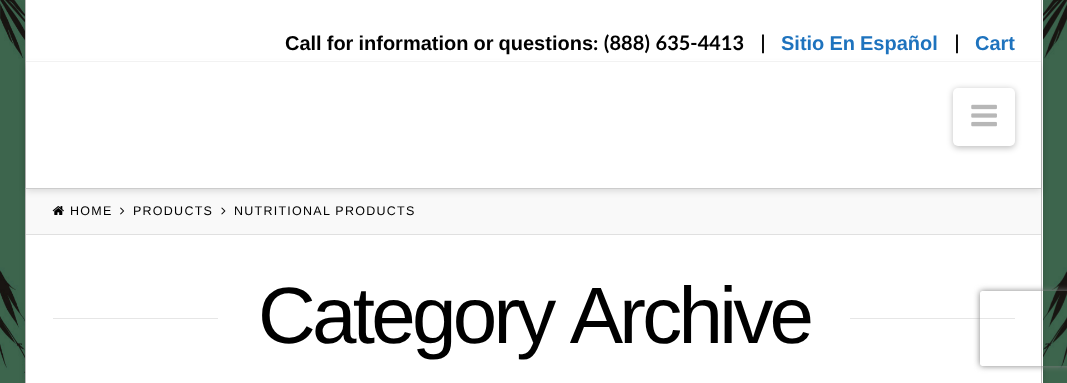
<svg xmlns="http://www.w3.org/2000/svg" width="1067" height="383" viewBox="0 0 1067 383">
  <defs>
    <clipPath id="clip1"><path d="M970 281H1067V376H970ZM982.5 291H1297.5C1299 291 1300 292 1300 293.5V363.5C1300 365 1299 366 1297.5 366H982.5C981 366 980 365 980 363.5V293.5C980 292 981 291 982.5 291Z" clip-rule="evenodd"/></clipPath>
  </defs>
  <rect width="100%" height="100%" fill="rgb(255,255,255)"/>
  <image x="0" y="0" width="1067" height="383" href="pic1.png"/>
  <rect x="25" y="0" width="1018" height="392" fill="rgba(0,0,0,0.12)" filter="blur(3px)"/>
  <rect x="26" y="0" width="1017" height="383" fill="rgb(255,255,255)"/>
  <rect x="1041" y="0" width="1" height="383" fill="rgb(185,185,185)"/>
  <rect x="25" y="0" width="1" height="383" fill="rgb(185,185,185)"/>
  <rect x="26" y="189" width="1015" height="45" fill="rgb(249,249,249)"/>
  <rect x="26" y="65" width="1015" height="126" fill="rgba(0,0,0,0.13)" filter="blur(3.5px)"/>
  <rect x="26" y="60" width="1015" height="128" fill="rgb(255,255,255)"/>
  <rect x="26" y="61" width="1015" height="1" fill="rgb(242,242,242)"/>
  <text x="285" y="50" word-spacing="-0.5" font-family="Liberation Sans" font-size="20" font-weight="bold" fill="rgb(0,0,0)">Call for information or questions</text>
  <g font-family="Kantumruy" font-size="20" font-weight="bold" fill="rgb(0,0,0)">
    <text x="593" y="50">: (888) 635-4413</text>
    <text x="760" y="50">|</text>
  </g>
  <text x="781" y="50" word-spacing="-0.5" font-family="Liberation Sans" font-size="20" font-weight="bold" fill="rgb(30,115,190)">Sitio En Español</text>
  <text x="954" y="50" font-family="Kantumruy" font-size="20" font-weight="bold" fill="rgb(0,0,0)">|</text>
  <text x="975" y="50" font-family="Liberation Sans" font-size="20" font-weight="bold" fill="rgb(30,115,190)">Cart</text>
  <rect x="26" y="188" width="1015" height="1" fill="rgb(204,204,204)"/>
  <rect x="953" y="89" width="62" height="59" rx="5" fill="rgba(0,0,0,0.25)" filter="blur(3px)"/>
  <rect x="953" y="88" width="62" height="58" rx="5" fill="rgb(255,255,255)"/>
  <image x="971" y="104" width="26" height="23" href="pic2.png"/>
  <rect x="26" y="234" width="1015" height="1" fill="rgb(224,224,224)"/>
  <image x="52" y="206" width="12" height="9" href="pic3.png"/>
  <text x="70" y="215" font-family="Liberation Sans" font-size="12.5" letter-spacing="1.25" fill="rgb(0,0,0)">HOME</text>
  <image x="120" y="207" width="5" height="8" href="pic4.png"/>
  <text x="133" y="215" font-family="Liberation Sans" font-size="12.5" letter-spacing="1.25" fill="rgb(0,0,0)">PRODUCTS</text>
  <image x="221" y="207" width="5" height="8" href="pic5.png"/>
  <text x="234" y="215" font-family="Liberation Sans" font-size="12.5" letter-spacing="1.25" fill="rgb(0,0,0)">NUTRITIONAL PRODUCTS</text>
  <rect x="53" y="318" width="165" height="1" fill="rgb(230,230,230)"/>
  <text x="258" y="343" word-spacing="3" font-family="Liberation Sans" font-size="80" letter-spacing="-3.75" fill="rgb(0,0,0)">Category Archive</text>
  <rect x="850" y="318" width="165" height="1" fill="rgb(230,230,230)"/>
  <g clip-path="url(#clip1)">
    <rect x="980" y="291" width="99" height="75" rx="2.5" fill="rgb(128,128,128)" filter="blur(3px)"/>
  </g>
</svg>
